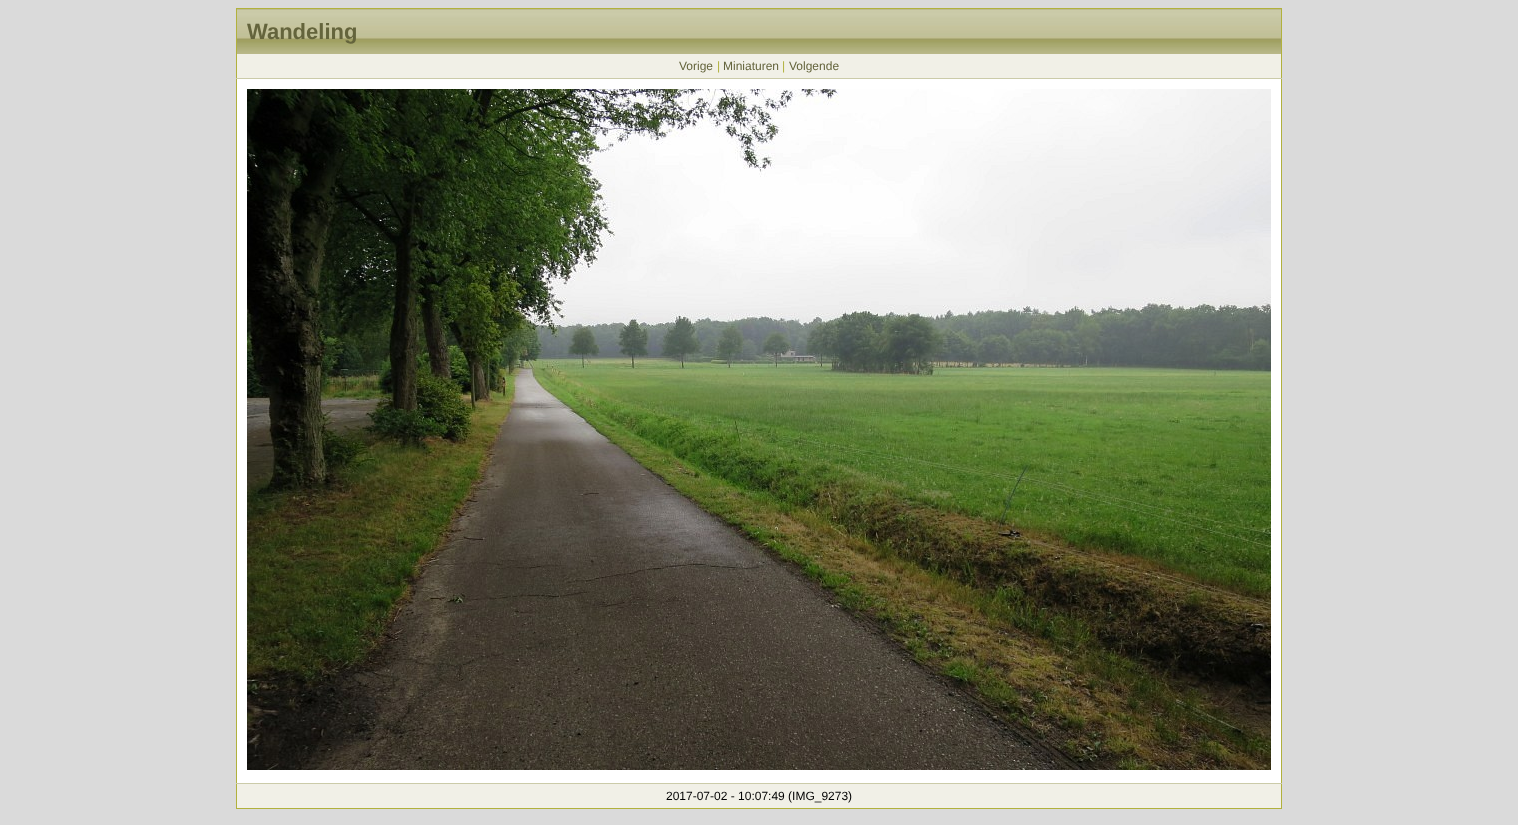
<svg xmlns="http://www.w3.org/2000/svg" width="1518" height="825" viewBox="0 0 1518 825">
  <rect width="100%" height="100%" fill="rgb(218,218,218)"/>
  <rect x="237" y="79" width="1044" height="704" fill="rgb(255,255,255)"/>
  <rect x="236" y="8" width="1046" height="1" fill="rgb(177,177,60)"/>
  <rect x="1281" y="8" width="1" height="801" fill="rgb(177,177,60)"/>
  <rect x="236" y="808" width="1046" height="1" fill="rgb(177,177,60)"/>
  <rect x="236" y="8" width="1" height="801" fill="rgb(177,177,60)"/>
  <image x="237" y="9" width="1044" height="45" href="pic1.png"/>
  <text x="247" y="39" font-family="Liberation Sans" font-size="22" font-weight="bold" fill="rgb(100,100,60)">Wandeling</text>
  <rect x="237" y="54" width="1044" height="24" fill="rgb(241,240,231)"/>
  <rect x="236" y="78" width="1046" height="1" fill="rgb(203,203,169)"/>
  <text x="679" y="70" font-family="Liberation Sans" font-size="12" fill="rgb(100,100,60)">Vorige</text>
  <text x="717" y="70" font-family="Liberation Sans" font-size="12" fill="rgb(177,177,60)">|</text>
  <text x="723" y="70" font-family="Liberation Sans" font-size="12" fill="rgb(100,100,60)">Miniaturen</text>
  <text x="782" y="70" font-family="Liberation Sans" font-size="12" fill="rgb(177,177,60)">|</text>
  <text x="789" y="70" font-family="Liberation Sans" font-size="12" fill="rgb(100,100,60)">Volgende</text>
  <image x="247" y="89" width="1024" height="681" href="pic2.png"/>
  <rect x="237" y="784" width="1044" height="24" fill="rgb(241,240,231)"/>
  <rect x="236" y="783" width="1046" height="1" fill="rgb(203,203,169)"/>
  <text x="666" y="800" font-family="Liberation Sans" font-size="12" fill="rgb(0,0,0)">2017-07-02 - 10:07:49 (IMG_9273)</text>
</svg>
